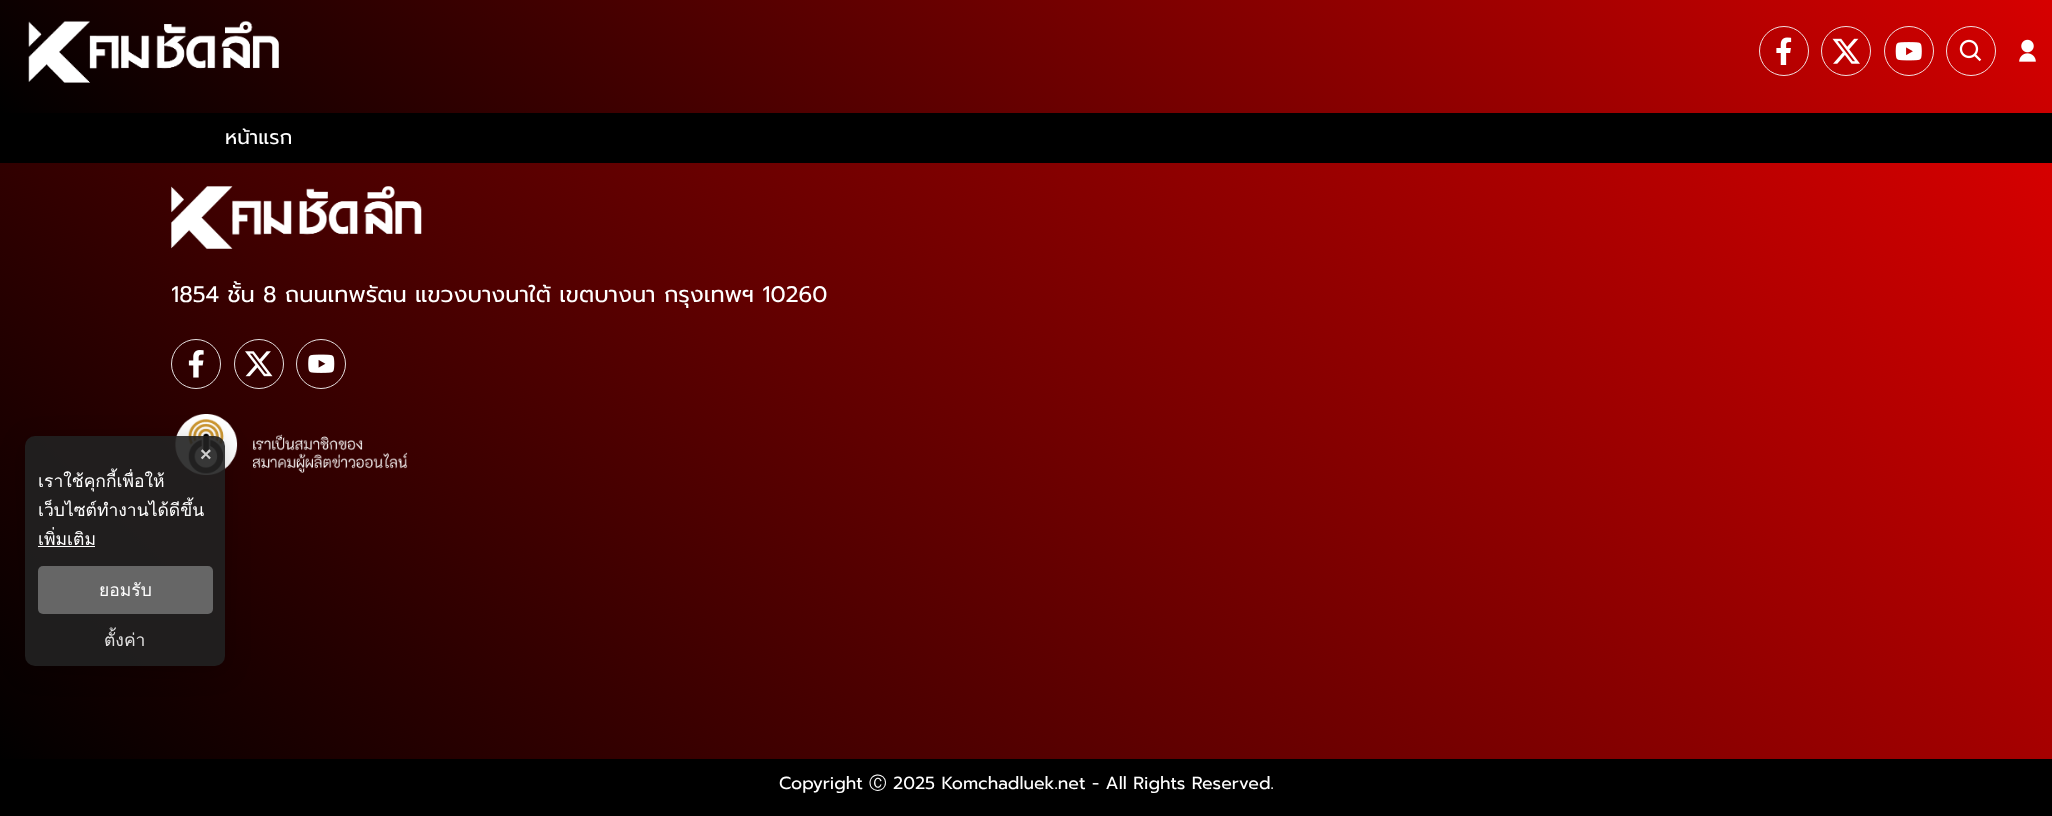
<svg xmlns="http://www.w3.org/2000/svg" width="2052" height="816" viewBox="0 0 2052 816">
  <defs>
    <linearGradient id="g1" gradientUnits="userSpaceOnUse" x1="485" y1="598" x2="1568" y2="-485"><stop offset="0" stop-color="rgb(0,0,0)"/><stop offset="1" stop-color="rgb(215,0,0)"/></linearGradient>
    <linearGradient id="g2" gradientUnits="userSpaceOnUse" x1="358" y1="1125" x2="1695" y2="-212"><stop offset="0" stop-color="rgb(0,0,0)"/><stop offset="1" stop-color="rgb(215,0,0)"/></linearGradient>
    <clipPath id="clip1"><path d="M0 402H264V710H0ZM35 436H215C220.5 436 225 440.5 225 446V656C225 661.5 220.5 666 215 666H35C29.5 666 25 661.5 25 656V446C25 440.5 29.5 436 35 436Z" clip-rule="evenodd"/></clipPath>
  </defs>
  <rect width="100%" height="100%" fill="rgb(255,255,255)"/>
  <rect x="0" y="113" width="2052" height="50" fill="rgb(0,0,0)"/>
  <rect x="0" y="0" width="2052" height="113" fill="url(#g1)"/>
  <image x="28" y="20" width="251" height="63" href="pic1.png"/>
  <circle cx="1784" cy="51" r="24.5" fill="none" stroke="rgba(247,247,247,0.9)"/>
  <image x="1776" y="37" width="16" height="28" href="pic2.png"/>
  <circle cx="1846" cy="51" r="24.5" fill="none" stroke="rgba(247,247,247,0.9)"/>
  <image x="1832" y="38" width="28" height="26" href="pic3.png"/>
  <circle cx="1909" cy="51" r="24.5" fill="none" stroke="rgba(247,247,247,0.9)"/>
  <image x="1895" y="42" width="27" height="19" href="pic4.png"/>
  <circle cx="1971" cy="51" r="24.5" fill="none" stroke="rgba(247,247,247,0.9)"/>
  <image x="1959" y="39" width="23" height="23" href="pic5.png"/>
  <image x="2019" y="39" width="17" height="23" href="pic6.png"/>
  <text x="225" y="144" font-family="Prompt" font-size="20" fill="rgb(255,255,255)">หน้าแรก</text>
  <rect x="0" y="163" width="2052" height="596" fill="url(#g2)"/>
  <image x="175" y="414" width="233" height="61" href="pic11.png"/>
  <g clip-path="url(#clip1)">
    <rect x="25" y="441" width="200" height="230" rx="10" fill="rgba(0,0,0,0.2)" filter="blur(12.5px)"/>
  </g>
  <rect x="25" y="436" width="200" height="230" rx="10" fill="rgba(33,33,33,0.9)"/>
  <text x="200" y="461" font-family="Liberation Sans" font-size="20" font-weight="bold" fill="rgb(204,204,204)">×</text>
  <g font-family="Loma" font-size="17.5" fill="rgb(255,255,255)">
    <text>
      <tspan x="38" y="487">เราใช้คุกกี้เพื่อให้</tspan>
      <tspan x="38" y="516">เว็บไซต์ทำงานได้ดีขึ้น</tspan>
      <tspan x="38" y="545">เพิ่มเติม</tspan>
    </text>
  </g>
  <rect x="38" y="546" width="57" height="1" fill="rgb(255,255,255)"/>
  <rect x="38" y="566" width="175" height="48" rx="5" fill="rgb(102,102,102)"/>
  <text x="99" y="596" font-family="Loma" font-size="17.5" fill="rgb(255,255,255)">ยอมรับ</text>
  <text x="104" y="646" font-family="Loma" font-size="17.5" fill="rgb(224,224,224)">ตั้งค่า</text>
  <image x="171" y="186" width="251" height="63" href="pic7.png"/>
  <text x="171" y="302" font-family="Prompt" font-size="22.5" fill="rgb(255,255,255)">1854 ชั้น 8 ถนนเทพรัตน แขวงบางนาใต้ เขตบางนา กรุงเทพฯ 10260</text>
  <circle cx="196" cy="364" r="24.5" fill="none" stroke="rgba(247,247,247,0.9)"/>
  <image x="188" y="350" width="16" height="28" href="pic8.png"/>
  <circle cx="259" cy="364" r="24.5" fill="none" stroke="rgba(247,247,247,0.9)"/>
  <image x="245" y="351" width="28" height="26" href="pic9.png"/>
  <circle cx="321" cy="364" r="24.5" fill="none" stroke="rgba(247,247,247,0.9)"/>
  <image x="308" y="354" width="27" height="19" href="pic10.png"/>
  <rect x="0" y="759" width="2052" height="57" fill="rgb(0,0,0)"/>
  <text x="779" y="789" font-family="Prompt" font-size="17.5" fill="rgb(255,255,255)">Copyright</text>
  <text x="869" y="789" font-family="WenQuanYi Zen Hei" font-size="17.5" font-weight="500" fill="rgb(255,255,255)">Ⓒ</text>
  <text x="893" y="789" font-family="Prompt" font-size="17.5" fill="rgb(255,255,255)">2025 Komchadluek.net - All Rights Reserved.</text>
</svg>
